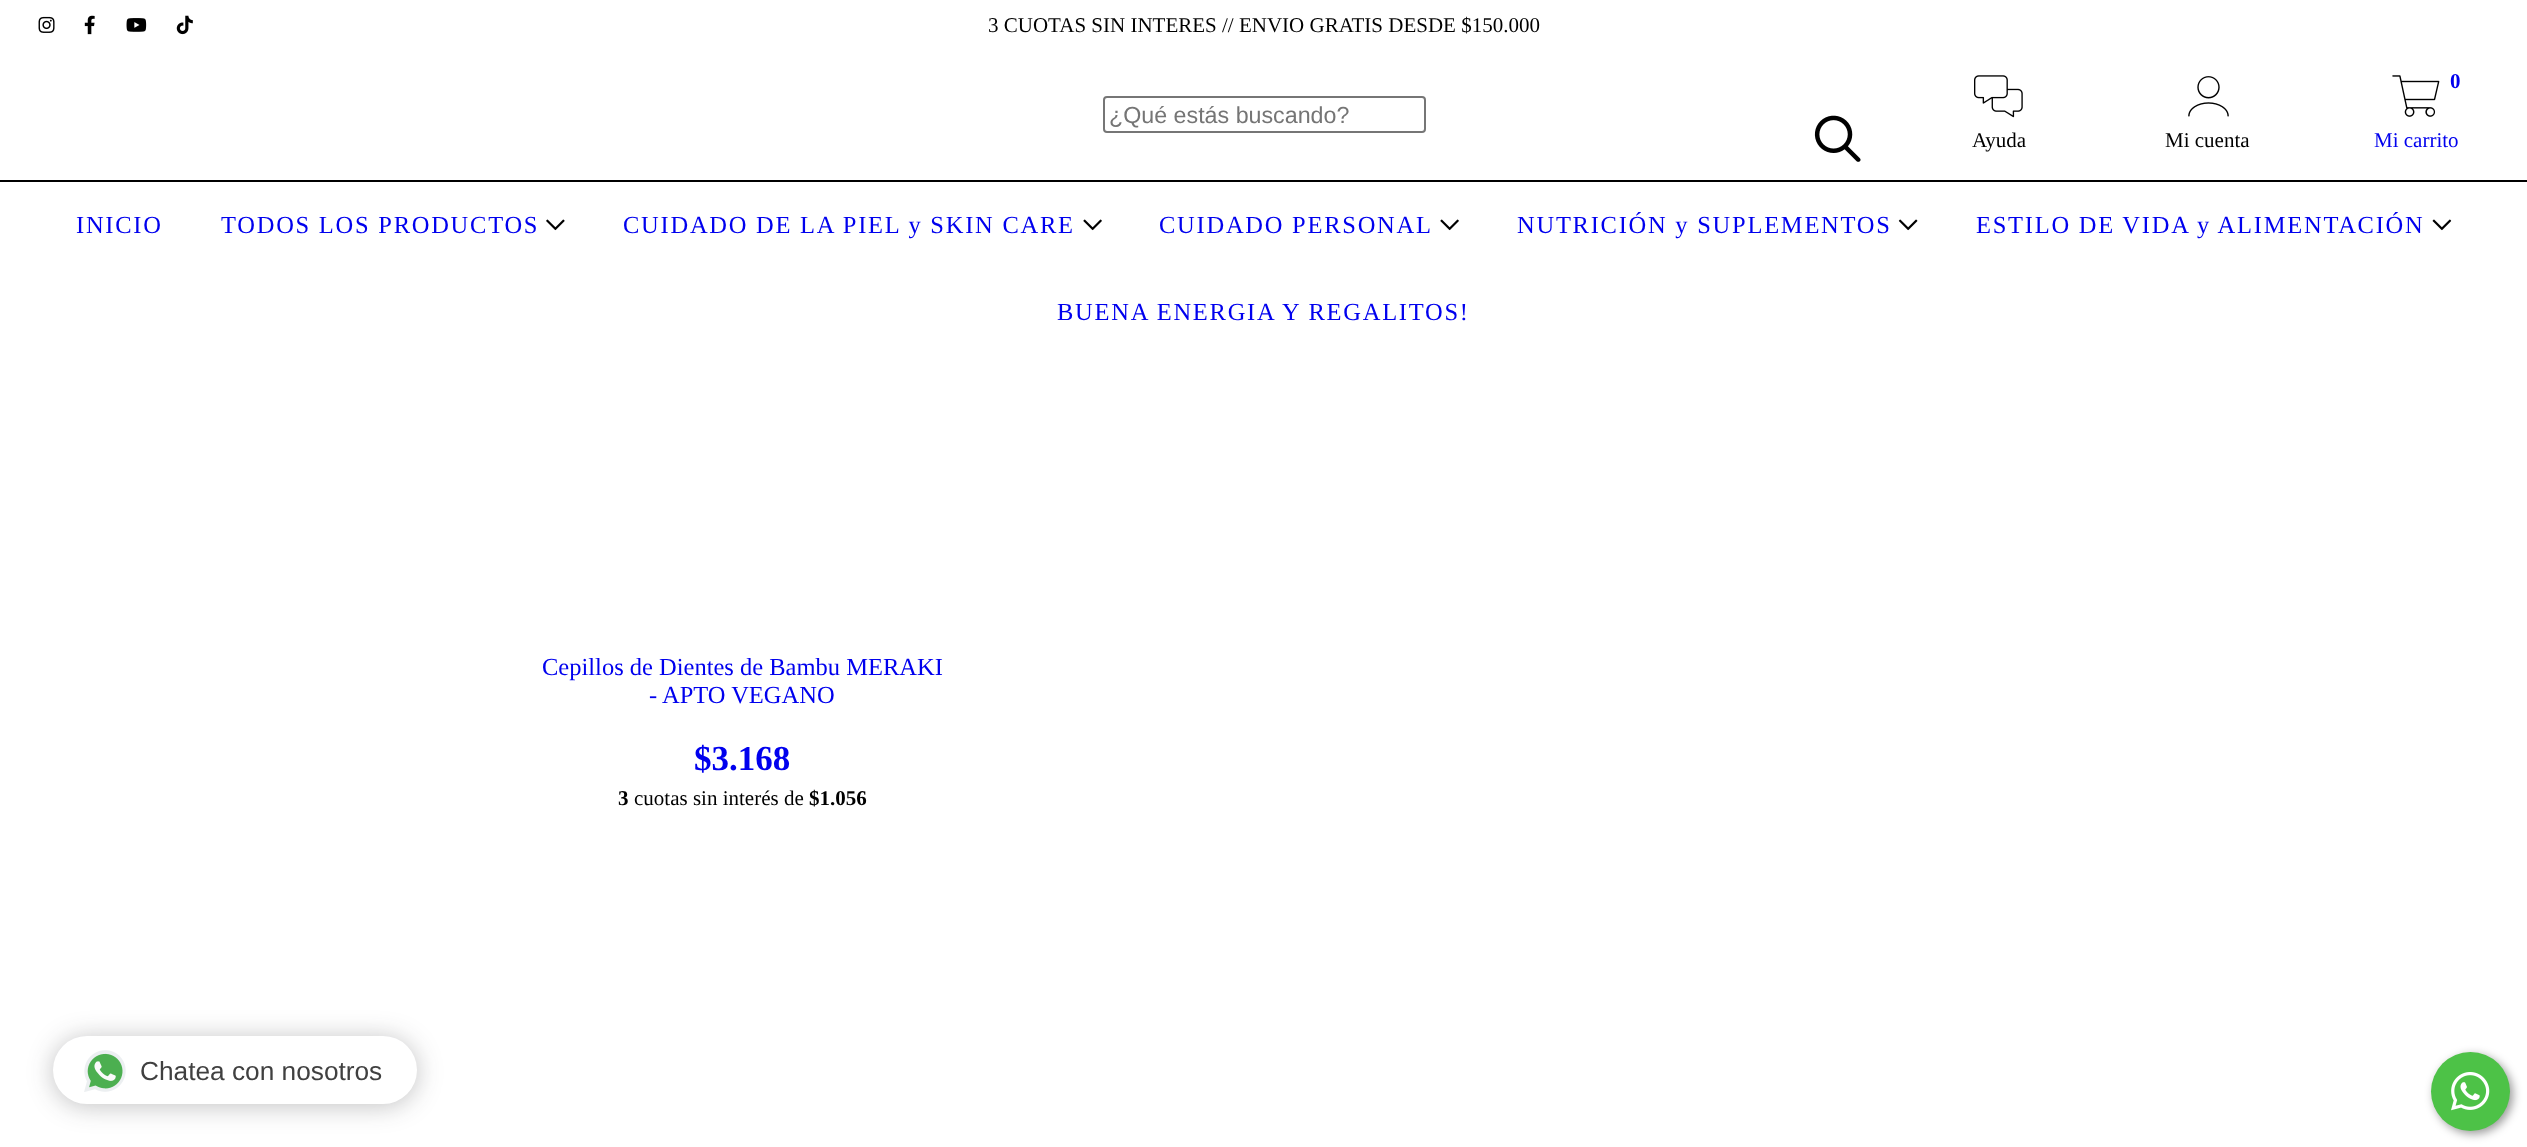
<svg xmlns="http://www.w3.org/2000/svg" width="2527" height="1147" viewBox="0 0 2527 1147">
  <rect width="100%" height="100%" fill="rgb(255,255,255)"/>
  <image x="38" y="16" width="17" height="17" href="pic1.png"/>
  <image x="84" y="15" width="11" height="20" href="pic2.png"/>
  <image x="126" y="18" width="21" height="14" href="pic3.png"/>
  <image x="176" y="15" width="17" height="20" href="pic4.png"/>
  <text x="988" y="32" font-family="Liberation Serif" font-size="21" fill="rgb(0,0,0)">3 CUOTAS SIN INTERES // ENVIO GRATIS DESDE $150.000</text>
  <rect x="1104" y="97" width="321" height="35" rx="3" fill="none" stroke="rgb(118,118,118)" stroke-width="2"/>
  <text x="1109" y="123" font-family="Liberation Sans" font-size="23.25" fill="rgb(117,117,117)">¿Qué estás buscando?</text>
  <image x="1814" y="115" width="47" height="47" href="pic5.png"/>
  <image x="1974" y="75" width="49" height="43" href="pic6.png"/>
  <text x="1972" y="147" font-family="Liberation Serif" font-size="21" fill="rgb(0,0,0)">Ayuda</text>
  <image x="2188" y="76" width="41" height="41" href="pic7.png"/>
  <text x="2165" y="147" font-family="Liberation Serif" font-size="21" fill="rgb(0,0,0)">Mi cuenta</text>
  <image x="2392" y="75" width="48" height="42" href="pic8.png"/>
  <text x="2450" y="88" font-family="Liberation Serif" font-size="21" font-weight="bold" fill="rgb(0,0,238)">0</text>
  <text x="2374" y="147" font-family="Liberation Serif" font-size="21" fill="rgb(0,0,238)">Mi carrito</text>
  <rect x="0" y="180" width="2527" height="2" fill="rgb(0,0,0)"/>
  <g font-family="Liberation Serif" font-size="24.5" letter-spacing="1.75" fill="rgb(0,0,238)">
    <text x="76" y="233">INICIO</text>
    <text x="221" y="233">TODOS LOS PRODUCTOS</text>
  </g>
  <image x="546" y="219" width="19" height="12" href="pic9.png"/>
  <text x="623" y="233" font-family="Liberation Serif" font-size="24.5" letter-spacing="1.75" fill="rgb(0,0,238)">CUIDADO DE LA PIEL y SKIN CARE</text>
  <image x="1083" y="219" width="19" height="12" href="pic10.png"/>
  <text x="1159" y="233" font-family="Liberation Serif" font-size="24.5" letter-spacing="1.75" fill="rgb(0,0,238)">CUIDADO PERSONAL</text>
  <image x="1440" y="219" width="19" height="12" href="pic10.png"/>
  <text x="1517" y="233" font-family="Liberation Serif" font-size="24.5" letter-spacing="1.75" fill="rgb(0,0,238)">NUTRICIÓN y SUPLEMENTOS</text>
  <image x="1898" y="219" width="20" height="12" href="pic11.png"/>
  <text x="1976" y="233" font-family="Liberation Serif" font-size="24.5" letter-spacing="1.75" fill="rgb(0,0,238)">ESTILO DE VIDA y ALIMENTACIÓN</text>
  <image x="2432" y="219" width="20" height="12" href="pic12.png"/>
  <text x="1057" y="320" font-family="Liberation Serif" font-size="24.5" letter-spacing="1.75" fill="rgb(0,0,238)">BUENA ENERGIA Y REGALITOS!</text>
  <g font-family="Liberation Serif" font-size="24.5" fill="rgb(0,0,238)">
    <text x="542" y="675">Cepillos de Dientes de Bambu MERAKI</text>
    <text x="649" y="703">- APTO VEGANO</text>
  </g>
  <text x="694" y="770" font-family="Liberation Serif" font-size="35" font-weight="bold" fill="rgb(0,0,238)">$3.168</text>
  <text x="618" y="805" font-family="Liberation Serif" font-size="21" font-weight="bold" fill="rgb(0,0,0)">3</text>
  <text x="634" y="805" font-family="Liberation Serif" font-size="21" fill="rgb(0,0,0)">cuotas sin interés de</text>
  <text x="809" y="805" font-family="Liberation Serif" font-size="21" font-weight="bold" fill="rgb(0,0,0)">$1.056</text>
  <rect x="53" y="1038" width="364" height="68" rx="34" fill="rgba(32,33,36,0.28)" filter="blur(13px)"/>
  <rect x="53" y="1036" width="364" height="68" rx="34" fill="rgb(255,255,255)"/>
  <image x="84" y="1050" width="42" height="42" href="pic13.png"/>
  <text x="140" y="1080" font-family="Liberation Sans" font-size="26.25" fill="rgb(64,64,64)">Chatea con nosotros</text>
  <rect x="2434" y="1055" width="79" height="79" rx="39.5" fill="rgba(0,0,0,0.4)" filter="blur(5px)"/>
  <circle cx="2470.5" cy="1091.5" r="39.5" fill="rgb(77,194,71)"/>
  <image x="2451" y="1072" width="39" height="39" href="pic14.png"/>
</svg>
